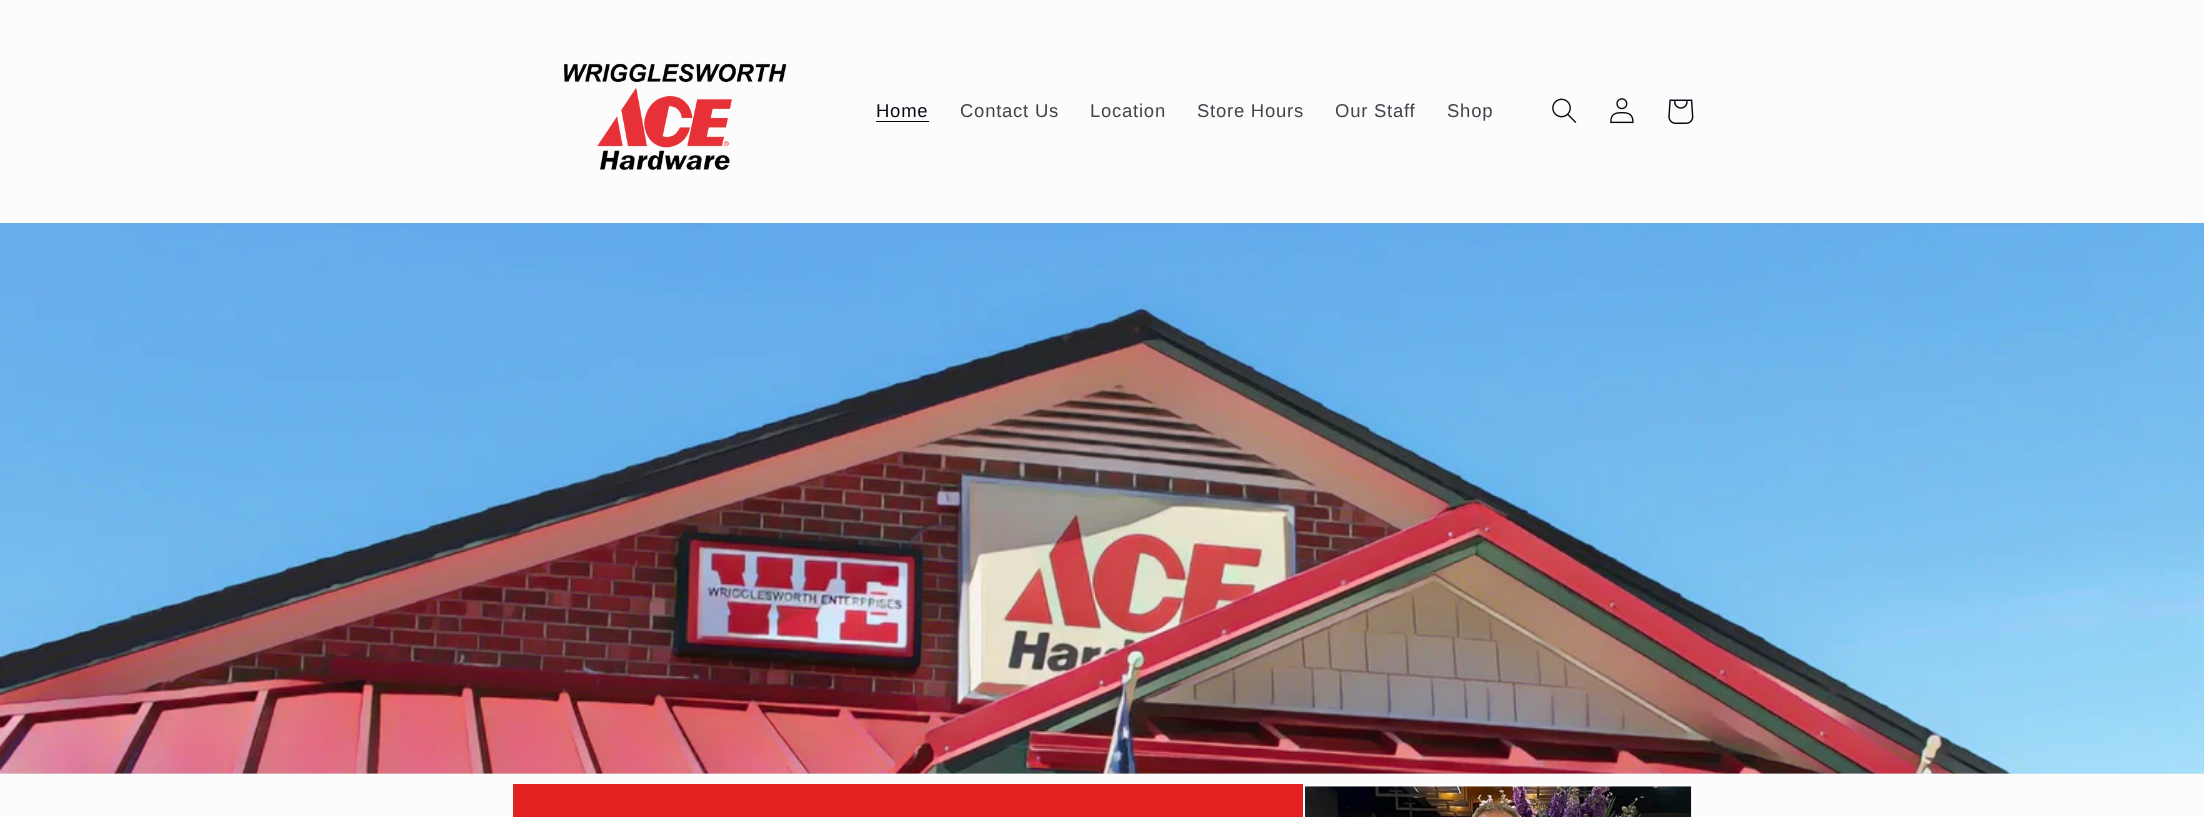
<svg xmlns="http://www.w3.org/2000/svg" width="2204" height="817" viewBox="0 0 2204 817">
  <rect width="100%" height="100%" fill="rgb(252,252,252)"/>
  <image x="563" y="63" width="224" height="107" href="pic1.png"/>
  <text x="876" y="117" font-family="Arimo" font-size="18.5" letter-spacing="0.75" fill="rgb(2,9,18)">Home</text>
  <rect x="876" y="121" width="53" height="1" fill="rgb(2,9,18)"/>
  <g font-family="Arimo" font-size="18.5" letter-spacing="0.75" fill="rgb(65,70,77)">
    <text x="960" y="117">Contact Us</text>
    <text x="1090" y="117">Location</text>
    <text x="1197" y="117">Store Hours</text>
    <text x="1335" y="117">Our Staff</text>
    <text x="1447" y="117">Shop</text>
  </g>
  <image x="1552" y="98" width="25" height="25" href="pic2.png"/>
  <image x="1610" y="98" width="24" height="26" href="pic3.png"/>
  <image x="1668" y="99" width="26" height="25" href="pic4.png"/>
  <rect x="0" y="773" width="2204" height="1" fill="rgb(230,231,231)"/>
  <image x="0" y="223" width="2204" height="551" href="pic5.png"/>
  <rect x="513" y="784" width="790" height="33" fill="rgb(226,33,32)"/>
  <rect x="1304.5" y="785.5" width="388" height="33" fill="none" stroke="rgb(255,255,255)" stroke-width="3"/>
  <image x="1305" y="786" width="387" height="31" href="pic6.png"/>
</svg>
